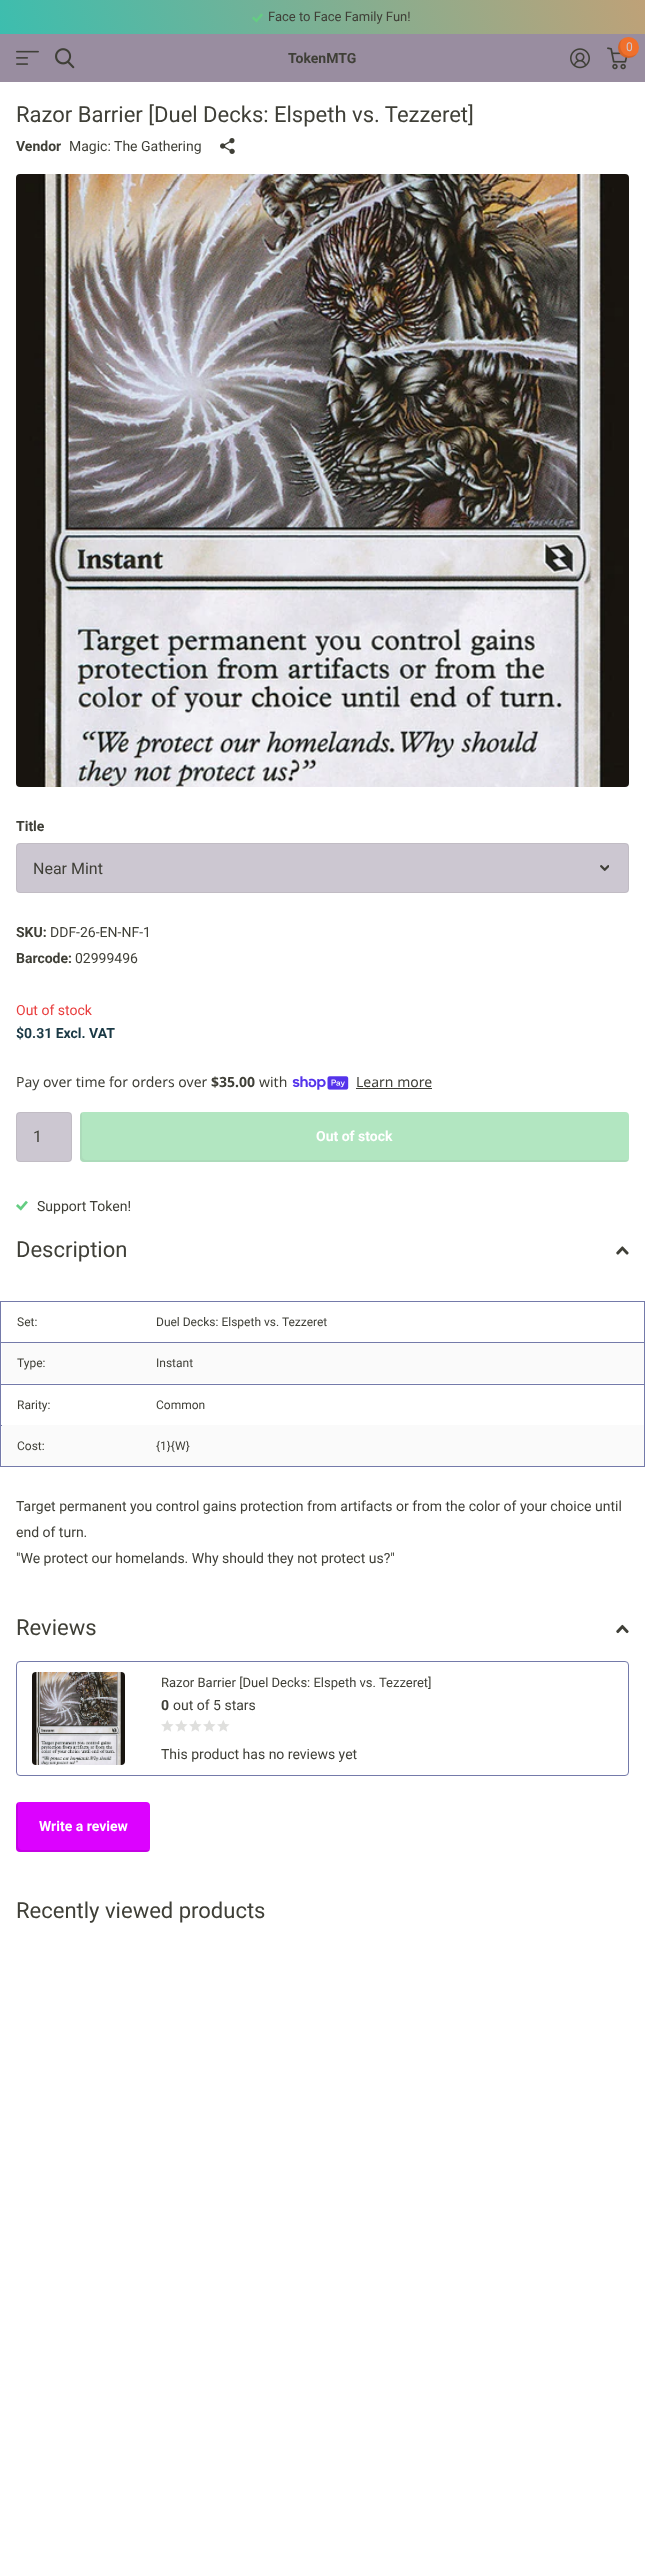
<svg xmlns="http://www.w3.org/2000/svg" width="645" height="2551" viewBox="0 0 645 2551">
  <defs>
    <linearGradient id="g1" gradientUnits="userSpaceOnUse" x1="4" y1="133" x2="641" y2="-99"><stop offset="0" stop-color="rgb(54,191,177)"/><stop offset="1" stop-color="rgb(197,160,117)"/></linearGradient>
  </defs>
  <rect width="100%" height="100%" fill="rgb(255,255,255)"/>
  <rect x="0" y="0" width="645" height="34" fill="url(#g1)"/>
  <image x="252" y="13" width="11" height="10" href="pic1.png"/>
  <text x="268" y="21" font-family="Roboto" font-size="13" fill="rgb(63,63,55)">Face to Face Family Fun!</text>
  <rect x="0" y="34" width="645" height="48" fill="rgb(153,141,160)"/>
  <image x="607" y="47" width="21" height="23" href="pic2.png"/>
  <circle cx="628.5" cy="47.5" r="10.5" fill="rgb(240,112,44)"/>
  <path d="M637 53.5C635.5 55 633 56 630 56C621 56 618 45.5 622 39.5C617 43 616.5 50.5 621 55C625.5 59.5 633.5 59 637 53.5Z" fill="rgba(0,0,0,0.1)"/>
  <text x="626" y="51" font-family="Roboto" font-size="12" fill="rgb(204,199,209)">0</text>
  <image x="570" y="48" width="20" height="21" href="pic3.png"/>
  <image x="16" y="50" width="23" height="15" href="pic4.png"/>
  <image x="55" y="48" width="20" height="21" href="pic5.png"/>
  <text x="288" y="63" font-family="Roboto" font-size="14" font-weight="bold" fill="rgb(63,63,55)">TokenMTG</text>
  <text x="16" y="122" font-family="Roboto" font-size="22" fill="rgb(63,63,55)">Razor Barrier [Duel Decks: Elspeth vs. Tezzeret]</text>
  <text x="16" y="151" font-family="Roboto" font-size="14" font-weight="bold" fill="rgb(63,63,55)">Vendor</text>
  <text x="69" y="151" font-family="Roboto" font-size="14" fill="rgb(63,63,55)">Magic: The Gathering</text>
  <image x="220" y="138" width="15" height="16" href="pic6.png"/>
  <image x="16" y="174" width="613" height="613" href="pic7.png"/>
  <text x="16" y="831" font-family="Roboto" font-size="14" font-weight="bold" fill="rgb(63,63,55)">Title</text>
  <rect x="16" y="843" width="613" height="50" rx="4" fill="rgb(204,199,209)"/>
  <image x="600" y="865" width="9" height="6" href="pic8.png"/>
  <rect x="16.5" y="843.5" width="612" height="49" rx="3.5" fill="none" stroke="rgba(63,63,55,0.08)"/>
  <text x="33" y="874" font-family="Roboto" font-size="16" fill="rgb(63,63,55)">Near Mint</text>
  <text x="16" y="937" font-family="Roboto" font-size="14" font-weight="bold" fill="rgb(63,63,55)">SKU:</text>
  <text x="50" y="937" font-family="Roboto" font-size="14" fill="rgb(63,63,55)">DDF-26-EN-NF-1</text>
  <text x="16" y="963" font-family="Roboto" font-size="14" font-weight="bold" fill="rgb(63,63,55)">Barcode:</text>
  <text x="75" y="963" font-family="Roboto" font-size="14" fill="rgb(63,63,55)">02999496</text>
  <text x="16" y="1015" font-family="Roboto" font-size="14" fill="rgb(233,61,61)">Out of stock</text>
  <text x="16" y="1038" font-family="Roboto" font-size="14" font-weight="bold" fill="rgb(26,57,69)">$0.31 Excl. VAT</text>
  <text x="16" y="1087" font-family="Noto Sans" font-size="14" fill="rgb(63,63,55)">Pay over time for orders over</text>
  <text x="211" y="1087" font-family="Noto Sans" font-size="14" font-weight="bold" fill="rgb(63,63,55)">$35.00</text>
  <text x="259" y="1087" font-family="Noto Sans" font-size="14" fill="rgb(63,63,55)">with</text>
  <image x="292" y="1076" width="57" height="14" href="pic9.png"/>
  <text x="356" y="1087" font-family="Noto Sans" font-size="14" fill="rgb(63,63,55)">Learn more</text>
  <rect x="356" y="1088" width="76" height="1" fill="rgb(63,63,55)"/>
  <rect x="16" y="1112" width="56" height="50" rx="4" fill="rgb(204,199,209)"/>
  <rect x="16.5" y="1112.5" width="55" height="49" rx="3.5" fill="none" stroke="rgba(63,63,55,0.08)"/>
  <text x="33" y="1142" font-family="Roboto" font-size="16" fill="rgb(63,63,55)">1</text>
  <rect x="80" y="1112" width="549" height="50" rx="4" fill="rgb(178,230,193)"/>
  <path d="M82 1112C81 1113 80 1114 80 1116V1158C80 1160 82 1162 84 1162H625C627 1162 628 1161 629 1160H627H86C84 1160 82 1158 82 1156V1114Z" fill="rgba(128,128,128,0.1)"/>
  <text x="316" y="1141" font-family="Roboto" font-size="14" font-weight="bold" fill="rgb(255,255,255)">Out of stock</text>
  <image x="16" y="1200" width="12" height="11" href="pic10.png"/>
  <text x="37" y="1211" font-family="Roboto" font-size="14" fill="rgb(63,63,55)">Support Token!</text>
  <text x="16" y="1257" font-family="Roboto" font-size="22" fill="rgb(63,63,55)">Description</text>
  <image x="616" y="1246" width="13" height="9" href="pic11.png"/>
  <rect x="0" y="1301" width="645" height="1" fill="rgb(116,122,170)"/>
  <rect x="644" y="1342" width="1" height="125" fill="rgb(116,122,170)"/>
  <rect x="644" y="1301" width="1" height="42" fill="rgb(116,122,170)"/>
  <rect x="0" y="1466" width="645" height="1" fill="rgb(116,122,170)"/>
  <rect x="0" y="1425" width="1" height="42" fill="rgb(116,122,170)"/>
  <rect x="0" y="1425" width="2" height="1" fill="rgb(116,122,170)"/>
  <rect x="0" y="1384" width="1" height="42" fill="rgb(116,122,170)"/>
  <rect x="0" y="1384" width="645" height="1" fill="rgb(116,122,170)"/>
  <rect x="0" y="1342" width="1" height="43" fill="rgb(116,122,170)"/>
  <rect x="0" y="1342" width="645" height="1" fill="rgb(116,122,170)"/>
  <rect x="0" y="1301" width="1" height="42" fill="rgb(116,122,170)"/>
  <g font-family="Roboto" font-size="12" fill="rgb(63,63,55)">
    <text x="17" y="1326">Set:</text>
    <text x="156" y="1326">Duel Decks: Elspeth vs. Tezzeret</text>
  </g>
  <rect x="2" y="1343" width="642" height="40" fill="rgb(250,250,250)"/>
  <g font-family="Roboto" font-size="12" fill="rgb(63,63,55)">
    <text x="17" y="1367">Type:</text>
    <text x="156" y="1367">Instant</text>
    <text x="17" y="1409">Rarity:</text>
    <text x="156" y="1409">Common</text>
  </g>
  <rect x="2" y="1425" width="642" height="41" fill="rgb(250,250,250)"/>
  <g font-family="Roboto" font-size="12" fill="rgb(63,63,55)">
    <text x="17" y="1450">Cost:</text>
    <text x="156" y="1450">{1}{W}</text>
  </g>
  <g font-family="Roboto" font-size="14" fill="rgb(63,63,55)">
    <text>
      <tspan x="16" y="1511">Target permanent you control gains protection from artifacts or from the color of your choice until</tspan>
      <tspan x="16" y="1537">end of turn.</tspan>
      <tspan x="16" y="1563">"We protect our homelands. Why should they not protect us?"</tspan>
    </text>
  </g>
  <text x="16" y="1635" font-family="Roboto" font-size="22" fill="rgb(63,63,55)">Reviews</text>
  <image x="616" y="1624" width="13" height="10" href="pic12.png"/>
  <rect x="16.5" y="1661.5" width="612" height="114" rx="3.5" fill="none" stroke="rgb(116,122,170)"/>
  <image x="32" y="1672" width="93" height="93" href="pic13.png"/>
  <text x="161" y="1687" font-family="Roboto" font-size="13" fill="rgb(63,63,55)">Razor Barrier [Duel Decks: Elspeth vs. Tezzeret]</text>
  <text x="161" y="1710" font-family="Roboto" font-size="14" font-weight="bold" fill="rgb(63,63,55)">0</text>
  <text x="173" y="1710" font-family="Roboto" font-size="14" fill="rgb(63,63,55)">out of 5 stars</text>
  <image x="161" y="1720" width="13" height="12" href="pic14.png"/>
  <image x="175" y="1720" width="13" height="12" href="pic14.png"/>
  <image x="189" y="1720" width="13" height="12" href="pic14.png"/>
  <image x="203" y="1720" width="13" height="12" href="pic14.png"/>
  <image x="217" y="1720" width="13" height="12" href="pic14.png"/>
  <text x="161" y="1759" font-family="Roboto" font-size="14" fill="rgb(63,63,55)">This product has no reviews yet</text>
  <rect x="16" y="1802" width="134" height="50" rx="4" fill="rgb(220,2,255)"/>
  <path d="M18 1802C17 1803 16 1804 16 1806V1848C16 1850 18 1852 20 1852H146C148 1852 149 1851 150 1850H148H22C20 1850 18 1848 18 1846V1804Z" fill="rgba(0,0,0,0.1)"/>
  <text x="39" y="1831" font-family="Roboto" font-size="14" font-weight="bold" fill="rgb(255,255,255)">Write a review</text>
  <text x="16" y="1918" font-family="Roboto" font-size="22" fill="rgb(63,63,55)">Recently viewed products</text>
</svg>
